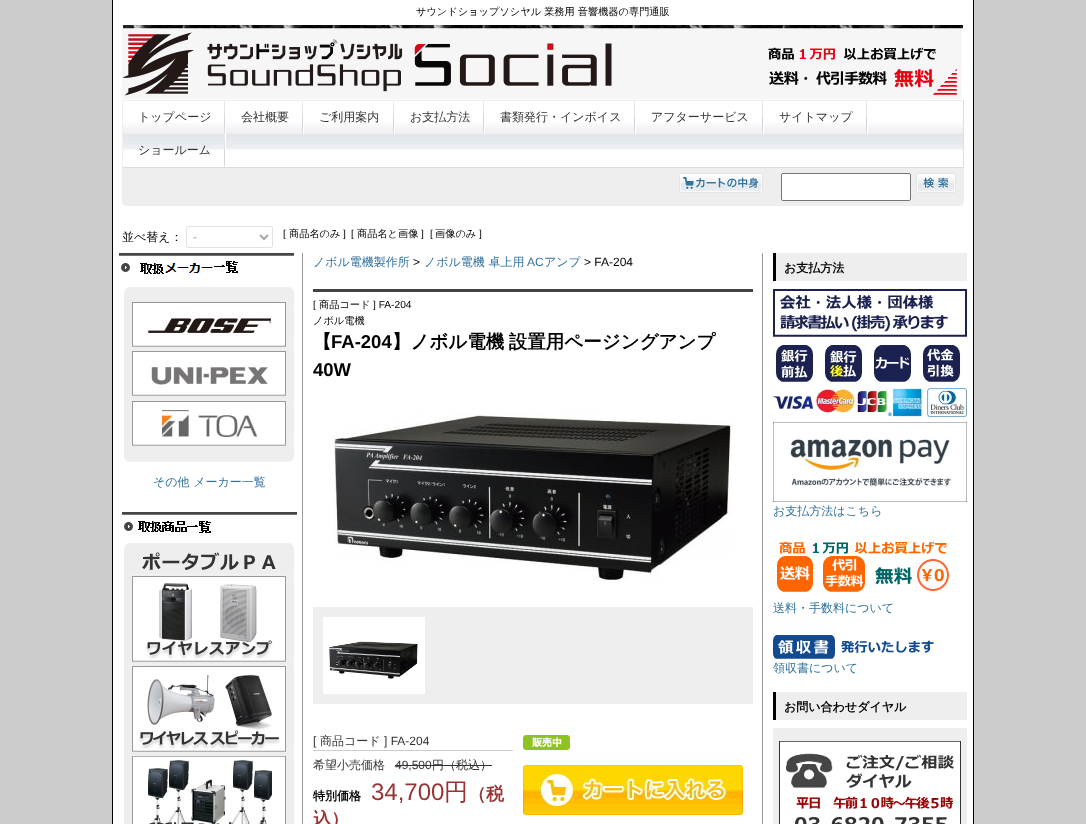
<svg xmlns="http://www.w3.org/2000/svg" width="1086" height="824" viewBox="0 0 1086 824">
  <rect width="100%" height="100%" fill="rgb(204,204,204)"/>
  <rect x="113" y="0" width="860" height="824" fill="rgb(255,255,255)"/>
  <rect x="973" y="0" width="1" height="824" fill="rgb(0,0,0)"/>
  <rect x="112" y="0" width="1" height="824" fill="rgb(0,0,0)"/>
  <text x="416" y="15" font-family="WenQuanYi Zen Hei" font-size="10.2" font-weight="500" fill="rgb(0,0,0)">サウンドショップソシヤル 業務用 音響機器の専門通販</text>
  <image x="122" y="25" width="841" height="74" href="pic1.png"/>
  <image x="123" y="123" width="840" height="28" href="pic2.png"/>
  <rect x="122" y="100" width="842" height="1" fill="rgb(238,238,238)"/>
  <rect x="963" y="100" width="1" height="68" fill="rgb(221,221,221)"/>
  <rect x="122" y="167" width="842" height="1" fill="rgb(221,221,221)"/>
  <rect x="122" y="100" width="1" height="68" fill="rgb(238,238,238)"/>
  <image x="224" y="101" width="2" height="33" href="pic3.png"/>
  <text x="138" y="121" font-family="WenQuanYi Zen Hei" font-size="12" font-weight="500" fill="rgb(51,51,51)">トップページ</text>
  <image x="302" y="101" width="2" height="33" href="pic3.png"/>
  <text x="241" y="121" font-family="WenQuanYi Zen Hei" font-size="12" font-weight="500" fill="rgb(51,51,51)">会社概要</text>
  <image x="393" y="101" width="2" height="33" href="pic3.png"/>
  <text x="319" y="121" font-family="WenQuanYi Zen Hei" font-size="12" font-weight="500" fill="rgb(51,51,51)">ご利用案内</text>
  <image x="483" y="101" width="2" height="33" href="pic3.png"/>
  <text x="410" y="121" font-family="WenQuanYi Zen Hei" font-size="12" font-weight="500" fill="rgb(51,51,51)">お支払方法</text>
  <image x="634" y="101" width="2" height="33" href="pic3.png"/>
  <text x="500" y="121" font-family="WenQuanYi Zen Hei" font-size="12" font-weight="500" fill="rgb(51,51,51)">書類発行・インボイス</text>
  <image x="762" y="101" width="2" height="33" href="pic3.png"/>
  <text x="651" y="121" font-family="WenQuanYi Zen Hei" font-size="12" font-weight="500" fill="rgb(51,51,51)">アフターサービス</text>
  <image x="866" y="101" width="2" height="33" href="pic3.png"/>
  <text x="779" y="121" font-family="WenQuanYi Zen Hei" font-size="12" font-weight="500" fill="rgb(51,51,51)">サイトマップ</text>
  <image x="224" y="134" width="2" height="33" href="pic3.png"/>
  <text x="138" y="154" font-family="WenQuanYi Zen Hei" font-size="12" font-weight="500" fill="rgb(51,51,51)">ショールーム</text>
  <path d="M122 168H964V201C964 204 962 206 959 206H127C124 206 122 204 122 201Z" fill="rgb(238,238,238)"/>
  <image x="679" y="173" width="84" height="20" href="pic4.png"/>
  <rect x="781.5" y="173.5" width="129" height="27" rx="1.5" fill="rgb(255,255,255)" stroke="rgb(118,118,118)"/>
  <image x="916" y="173" width="40" height="20" href="pic5.png"/>
  <text x="122" y="241" font-family="WenQuanYi Zen Hei" font-size="12" font-weight="500" fill="rgb(0,0,0)">並べ替え：</text>
  <rect x="186.5" y="226.5" width="86" height="21" rx="1.5" fill="none" stroke="rgb(226,226,226)"/>
  <path d="M260 235L264 239L268 235" fill="none" stroke="rgb(166,166,166)" stroke-width="2"/>
  <text x="193" y="241" font-family="Liberation Sans" font-size="12" fill="rgb(166,166,166)">-</text>
  <text x="283" y="237" font-family="Liberation Sans" font-size="10.2" fill="rgb(0,0,0)">[</text>
  <text x="289" y="237" font-family="WenQuanYi Zen Hei" font-size="10.2" font-weight="500" fill="rgb(0,0,0)">商品名のみ</text>
  <g font-family="Liberation Sans" font-size="10.2" fill="rgb(0,0,0)">
    <text x="343" y="237">]</text>
    <text x="351" y="237">[</text>
  </g>
  <text x="357" y="237" font-family="WenQuanYi Zen Hei" font-size="10.2" font-weight="500" fill="rgb(0,0,0)">商品名と画像</text>
  <g font-family="Liberation Sans" font-size="10.2" fill="rgb(0,0,0)">
    <text x="421" y="237">]</text>
    <text x="430" y="237">[</text>
  </g>
  <text x="435" y="237" font-family="WenQuanYi Zen Hei" font-size="10.2" font-weight="500" fill="rgb(0,0,0)">画像のみ</text>
  <text x="479" y="237" font-family="Liberation Sans" font-size="10.2" fill="rgb(0,0,0)">]</text>
  <rect x="302" y="253" width="1" height="571" fill="rgb(153,153,153)"/>
  <image x="119" y="253" width="175" height="21" href="pic6.png"/>
  <image x="124" y="287" width="170" height="14" href="pic7.png"/>
  <image x="124" y="301" width="170" height="49" href="pic8.png"/>
  <image x="124" y="350" width="170" height="49" href="pic9.png"/>
  <image x="124" y="399" width="170" height="49" href="pic10.png"/>
  <image x="124" y="448" width="170" height="14" href="pic11.png"/>
  <text x="153" y="486" font-family="WenQuanYi Zen Hei" font-size="12" font-weight="500" fill="rgb(50,114,158)">その他 メーカー一覧</text>
  <image x="122" y="512" width="175" height="21" href="pic12.png"/>
  <image x="124" y="543" width="170" height="32" href="pic13.png"/>
  <image x="124" y="575" width="170" height="90" href="pic14.png"/>
  <image x="124" y="665" width="170" height="90" href="pic15.png"/>
  <image x="124" y="755" width="170" height="69" href="pic16.png"/>
  <text x="313" y="266" font-family="WenQuanYi Zen Hei" font-size="12" font-weight="500" fill="rgb(50,114,158)">ノボル電機製作所</text>
  <text x="413" y="266" font-family="Liberation Sans" font-size="12" fill="rgb(0,0,0)">&gt;</text>
  <text x="424" y="266" font-family="WenQuanYi Zen Hei" font-size="12" font-weight="500" fill="rgb(50,114,158)">ノボル電機 卓上用</text>
  <text x="527" y="266" font-family="Liberation Sans" font-size="12" fill="rgb(50,114,158)">AC</text>
  <text x="544" y="266" font-family="WenQuanYi Zen Hei" font-size="12" font-weight="500" fill="rgb(50,114,158)">アンプ</text>
  <text x="584" y="266" font-family="Liberation Sans" font-size="12" fill="rgb(0,0,0)">&gt; FA-204</text>
  <rect x="313" y="289" width="440" height="3" fill="rgb(67,67,67)"/>
  <text x="313" y="308" font-family="Liberation Sans" font-size="10.2" fill="rgb(0,0,0)">[</text>
  <text x="319" y="308" font-family="WenQuanYi Zen Hei" font-size="10.2" font-weight="500" fill="rgb(0,0,0)">商品コード</text>
  <text x="373" y="308" font-family="Liberation Sans" font-size="10.2" fill="rgb(0,0,0)">] FA-204</text>
  <text x="313" y="324" font-family="WenQuanYi Zen Hei" font-size="10.2" font-weight="500" fill="rgb(0,0,0)">ノボル電機</text>
  <text x="313" y="348" font-family="WenQuanYi Zen Hei" font-size="18.5" font-weight="bold" fill="rgb(0,0,0)">【</text>
  <text x="331" y="348" font-family="Liberation Sans" font-size="18.5" font-weight="bold" fill="rgb(0,0,0)">FA-204</text>
  <text x="392" y="348" word-spacing="-1" font-family="WenQuanYi Zen Hei" font-size="18.5" font-weight="bold" fill="rgb(0,0,0)">】ノボル電機 設置用ページングアンプ</text>
  <text x="313" y="376" font-family="Liberation Sans" font-size="18.5" font-weight="bold" fill="rgb(0,0,0)">40W</text>
  <image x="333" y="413" width="400" height="168" href="pic17.png"/>
  <rect x="313" y="607" width="440" height="97" fill="rgb(238,238,238)"/>
  <image x="323" y="617" width="102" height="77" href="pic18.png"/>
  <text x="313" y="745" font-family="Liberation Sans" font-size="12" fill="rgb(51,51,51)">[</text>
  <text x="320" y="745" font-family="WenQuanYi Zen Hei" font-size="12" font-weight="500" fill="rgb(51,51,51)">商品コード</text>
  <text x="384" y="745" font-family="Liberation Sans" font-size="12" fill="rgb(51,51,51)">] FA-204</text>
  <rect x="313" y="750" width="200" height="1" fill="rgb(204,204,204)"/>
  <text x="313" y="769" font-family="WenQuanYi Zen Hei" font-size="12" font-weight="500" fill="rgb(51,51,51)">希望小売価格</text>
  <text x="395" y="769" font-family="Liberation Sans" font-size="12" fill="rgb(51,51,51)">49,500</text>
  <rect x="395" y="765" width="97" height="1" fill="rgb(51,51,51)"/>
  <text x="432" y="769" font-family="WenQuanYi Zen Hei" font-size="12" font-weight="500" fill="rgb(51,51,51)">円（税込）</text>
  <text x="313" y="800" font-family="WenQuanYi Zen Hei" font-size="12" font-weight="bold" fill="rgb(0,0,0)">特別価格</text>
  <text x="371" y="800" font-family="Liberation Sans" font-size="24" fill="rgb(153,51,51)">34,700</text>
  <text x="444" y="800" font-family="WenQuanYi Zen Hei" font-size="24" font-weight="500" fill="rgb(153,51,51)">円</text>
  <g font-family="WenQuanYi Zen Hei" font-size="18" font-weight="bold" fill="rgb(153,51,51)">
    <text x="468" y="800">（税</text>
    <text x="313" y="825">込）</text>
  </g>
  <image x="523" y="735" width="47" height="15" href="pic19.png"/>
  <image x="523" y="765" width="220" height="50" href="pic20.png"/>
  <rect x="762" y="253" width="1" height="571" fill="rgb(153,153,153)"/>
  <rect x="776" y="253" width="191" height="28" fill="rgb(238,238,238)"/>
  <rect x="773" y="253" width="3" height="28" fill="rgb(0,0,0)"/>
  <text x="784" y="272" font-family="WenQuanYi Zen Hei" font-size="12" font-weight="bold" fill="rgb(0,0,0)">お支払方法</text>
  <image x="773" y="289" width="194" height="48" href="pic21.png"/>
  <image x="773" y="345" width="194" height="72" href="pic22.png"/>
  <image x="773" y="422" width="194" height="80" href="pic23.png"/>
  <text x="773" y="515" font-family="WenQuanYi Zen Hei" font-size="12" font-weight="500" fill="rgb(50,114,158)">お支払方法はこちら</text>
  <image x="777" y="541" width="172" height="51" href="pic24.png"/>
  <text x="773" y="612" font-family="WenQuanYi Zen Hei" font-size="12" font-weight="500" fill="rgb(50,114,158)">送料・手数料について</text>
  <image x="773" y="635" width="161" height="24" href="pic25.png"/>
  <text x="773" y="672" font-family="WenQuanYi Zen Hei" font-size="12" font-weight="500" fill="rgb(50,114,158)">領収書について</text>
  <rect x="776" y="692" width="191" height="28" fill="rgb(238,238,238)"/>
  <rect x="773" y="692" width="3" height="28" fill="rgb(0,0,0)"/>
  <text x="784" y="711" font-family="WenQuanYi Zen Hei" font-size="12" font-weight="bold" fill="rgb(0,0,0)">お問い合わせダイヤル</text>
  <rect x="773" y="728" width="194" height="96" fill="rgb(238,238,238)"/>
  <image x="779" y="741" width="182" height="83" href="pic26.png"/>
</svg>
